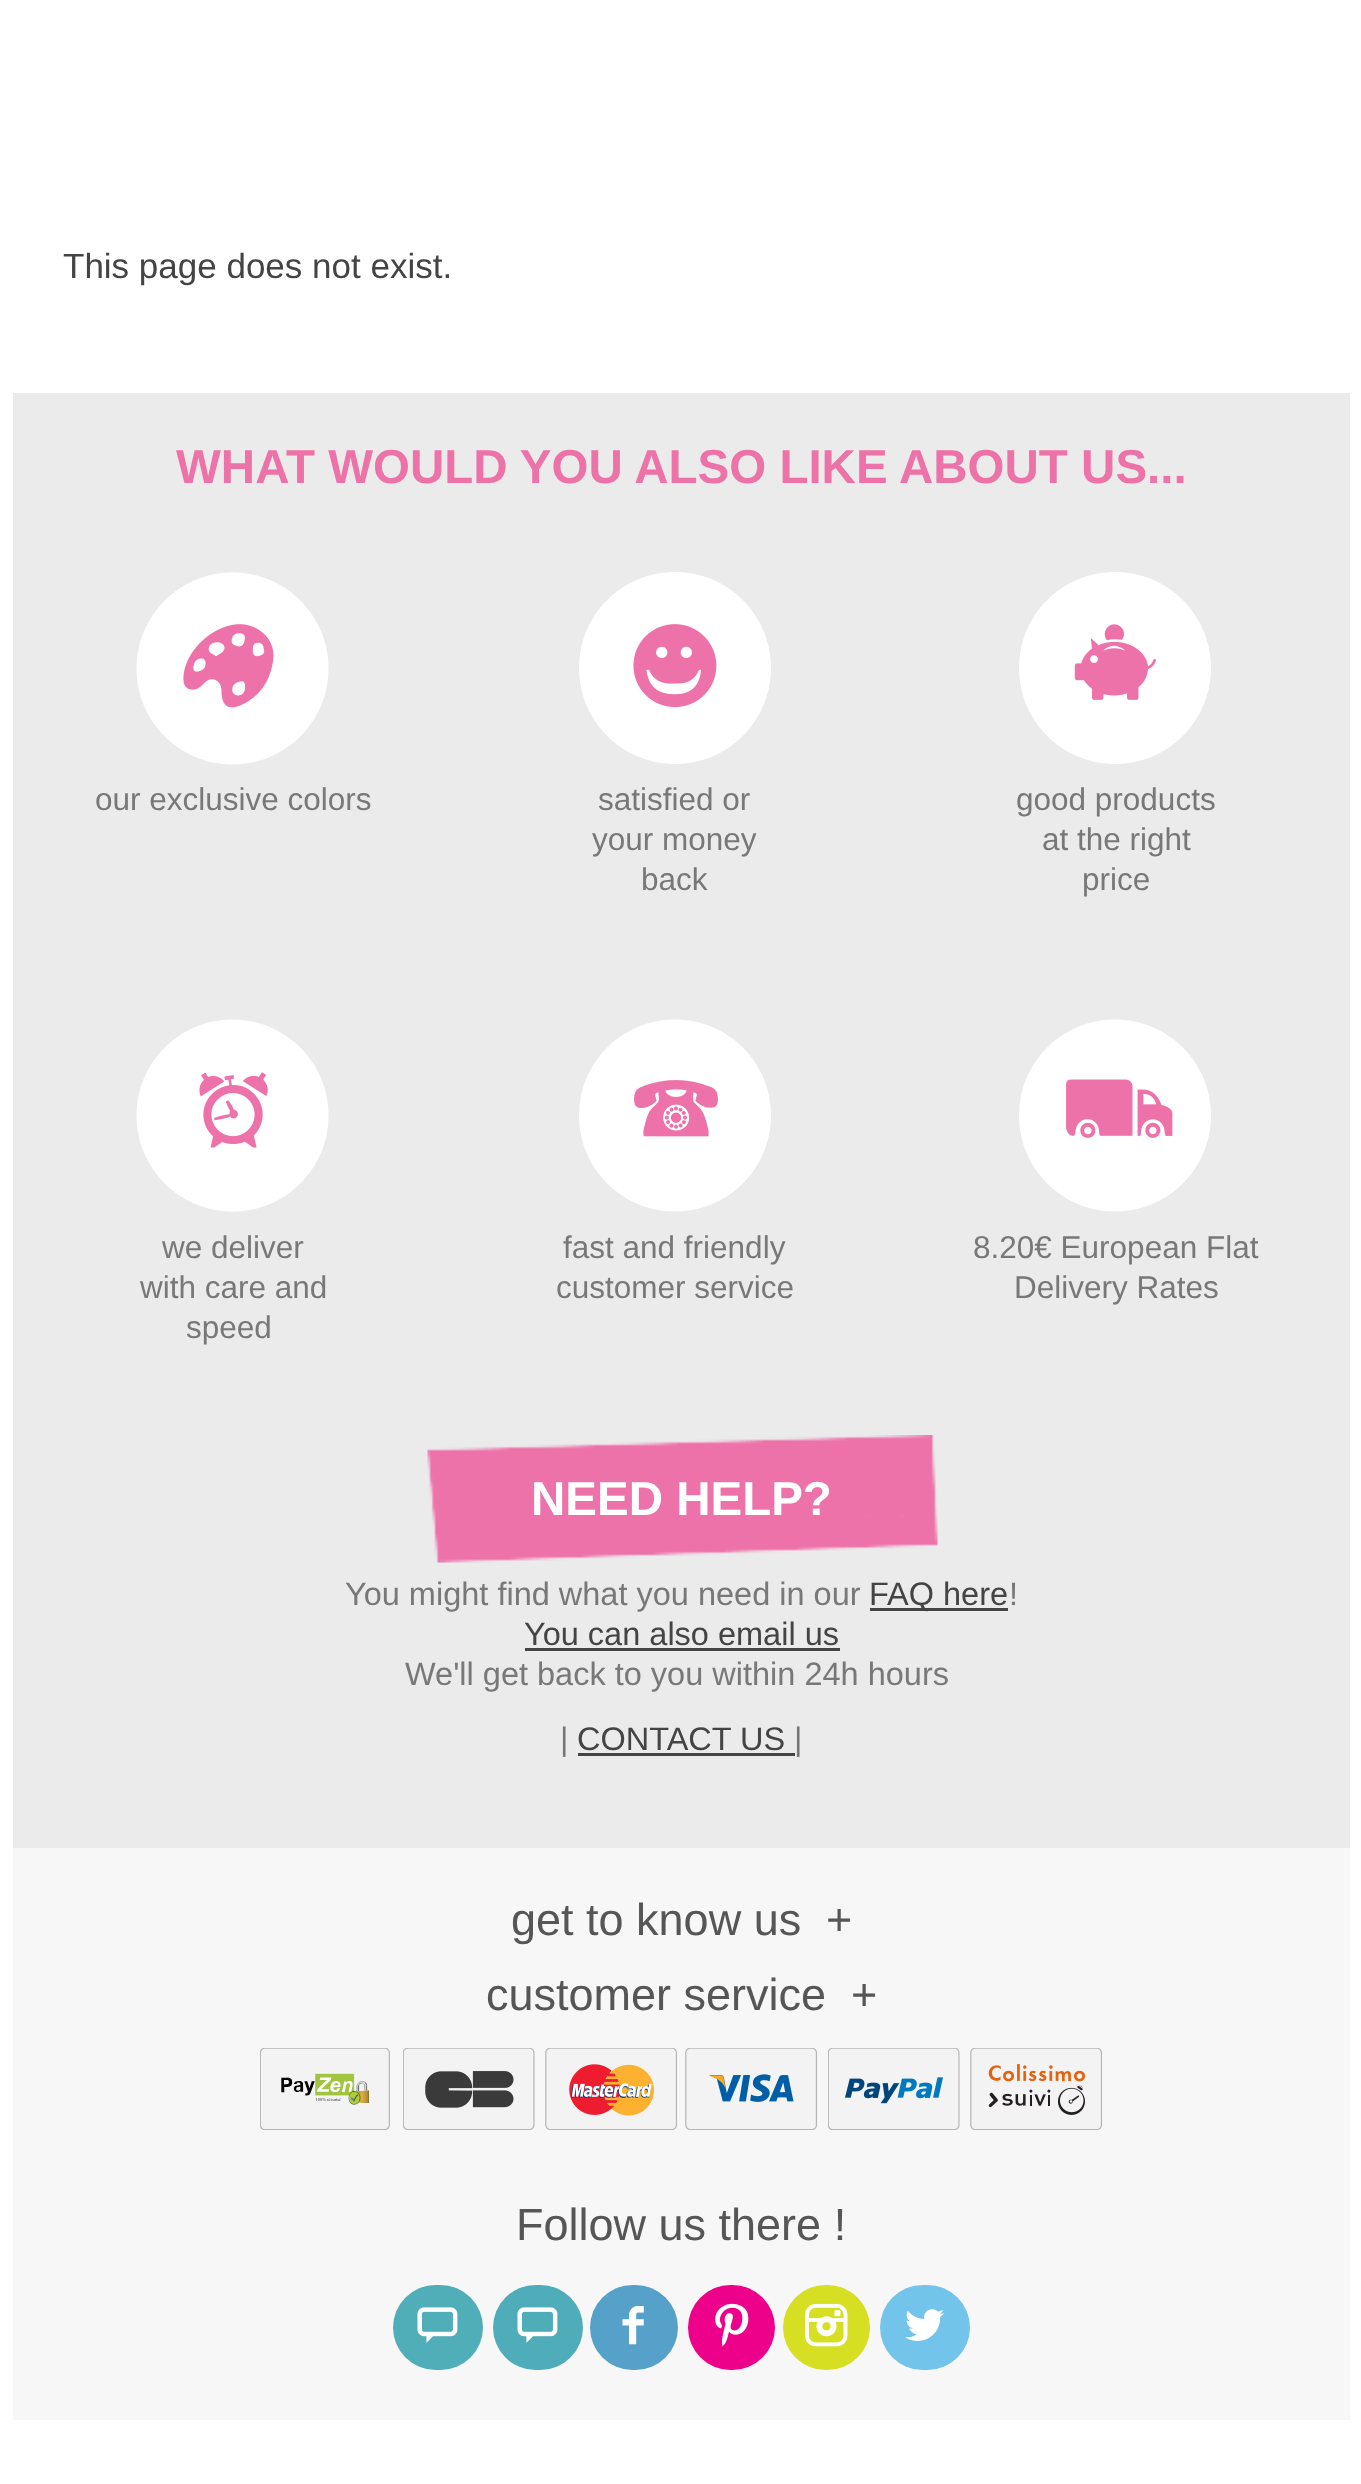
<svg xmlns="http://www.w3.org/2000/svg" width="1361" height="2484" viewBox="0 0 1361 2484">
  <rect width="100%" height="100%" fill="rgb(255,255,255)"/>
  <text x="63" y="278" font-family="Liberation Sans" font-size="35" fill="rgb(68,68,68)">This page does not exist.</text>
  <rect x="13" y="393" width="1337" height="1455" fill="rgb(235,235,235)"/>
  <text x="176" y="483" font-family="Liberation Sans" font-size="47.5" font-weight="bold" fill="rgb(237,114,168)">WHAT WOULD YOU ALSO LIKE ABOUT US...</text>
  <image x="136" y="572" width="193" height="193" href="pic1.png"/>
  <text x="95" y="810" font-family="Liberation Sans" font-size="31.5" fill="rgb(120,120,120)">our exclusive colors</text>
  <image x="579" y="572" width="192" height="192" href="pic2.png"/>
  <g font-family="Liberation Sans" font-size="31.5" fill="rgb(120,120,120)">
    <text x="598" y="810">satisfied or</text>
    <text x="592" y="850">your money</text>
    <text x="641" y="890">back</text>
  </g>
  <image x="1019" y="572" width="192" height="192" href="pic3.png"/>
  <g font-family="Liberation Sans" font-size="31.5" fill="rgb(120,120,120)">
    <text x="1016" y="810">good products</text>
    <text x="1042" y="850">at the right</text>
    <text x="1082" y="890">price</text>
  </g>
  <image x="136" y="1019" width="193" height="193" href="pic4.png"/>
  <g font-family="Liberation Sans" font-size="31.5" fill="rgb(120,120,120)">
    <text x="162" y="1258">we deliver</text>
    <text x="140" y="1298">with care and</text>
    <text x="186" y="1338">speed</text>
  </g>
  <image x="579" y="1019" width="192" height="193" href="pic5.png"/>
  <g font-family="Liberation Sans" font-size="31.5" fill="rgb(120,120,120)">
    <text x="563" y="1258">fast and friendly</text>
    <text x="556" y="1298">customer service</text>
  </g>
  <image x="1019" y="1019" width="192" height="193" href="pic6.png"/>
  <g font-family="Liberation Sans" font-size="31.5" fill="rgb(120,120,120)">
    <text x="973" y="1258">8.20€ European Flat</text>
    <text x="1014" y="1298">Delivery Rates</text>
  </g>
  <image x="427" y="1435" width="511" height="128" href="pic7.png"/>
  <text x="531" y="1515" font-family="Liberation Sans" font-size="47.5" font-weight="bold" fill="rgb(255,255,255)">NEED HELP?</text>
  <text x="345" y="1605" font-family="Liberation Sans" font-size="32.5" fill="rgb(120,120,120)">You might find what you need in our</text>
  <rect x="870" y="1608" width="138" height="3" fill="rgb(68,68,68)"/>
  <text x="869" y="1605" font-family="Liberation Sans" font-size="32.5" fill="rgb(68,68,68)">FAQ here</text>
  <text x="1009" y="1605" font-family="Liberation Sans" font-size="32.5" fill="rgb(120,120,120)">!</text>
  <text x="524" y="1645" font-family="Liberation Sans" font-size="32.5" fill="rgb(68,68,68)">You can also email us</text>
  <rect x="525" y="1648" width="315" height="3" fill="rgb(68,68,68)"/>
  <g font-family="Liberation Sans" font-size="32.5" fill="rgb(120,120,120)">
    <text x="405" y="1685">We'll get back to you within 24h hours</text>
    <text x="560" y="1750">|</text>
  </g>
  <text x="577" y="1750" font-family="Liberation Sans" font-size="32.5" fill="rgb(68,68,68)">CONTACT US</text>
  <rect x="578" y="1753" width="217" height="3" fill="rgb(68,68,68)"/>
  <text x="794" y="1750" font-family="Liberation Sans" font-size="32.5" fill="rgb(120,120,120)">|</text>
  <rect x="13" y="1848" width="1337" height="572" fill="rgb(247,247,247)"/>
  <g font-family="Liberation Sans" font-size="45" fill="rgb(86,86,86)">
    <text x="511" y="1935">get to know us</text>
    <text x="826" y="1935">+</text>
    <text x="486" y="2010">customer service</text>
    <text x="851" y="2010">+</text>
  </g>
  <image x="260" y="2048" width="130" height="82" href="pic8.png"/>
  <image x="403" y="2048" width="132" height="82" href="pic9.png"/>
  <image x="545" y="2048" width="133" height="82" href="pic10.png"/>
  <image x="685" y="2048" width="133" height="82" href="pic11.png"/>
  <image x="828" y="2048" width="132" height="82" href="pic12.png"/>
  <image x="970" y="2048" width="133" height="82" href="pic13.png"/>
  <text x="516" y="2240" font-family="Liberation Sans" font-size="45" fill="rgb(86,86,86)">Follow us there !</text>
  <rect x="393" y="2285" width="90" height="85" rx="42.5" fill="rgb(80,174,184)"/>
  <image x="417" y="2307" width="41" height="36" href="pic14.png"/>
  <rect x="493" y="2285" width="90" height="85" rx="42.5" fill="rgb(79,173,185)"/>
  <image x="517" y="2307" width="41" height="36" href="pic15.png"/>
  <rect x="590" y="2285" width="88" height="85" rx="42.5" fill="rgb(86,161,201)"/>
  <image x="622" y="2306" width="22" height="39" href="pic16.png"/>
  <rect x="688" y="2285" width="87" height="85" rx="42.5" fill="rgb(237,1,138)"/>
  <image x="715" y="2303" width="34" height="44" href="pic17.png"/>
  <rect x="783" y="2285" width="87" height="85" rx="42.5" fill="rgb(214,223,34)"/>
  <image x="805" y="2303" width="43" height="44" href="pic18.png"/>
  <rect x="880" y="2285" width="90" height="85" rx="42.5" fill="rgb(114,196,234)"/>
  <image x="905" y="2309" width="39" height="32" href="pic19.png"/>
</svg>
